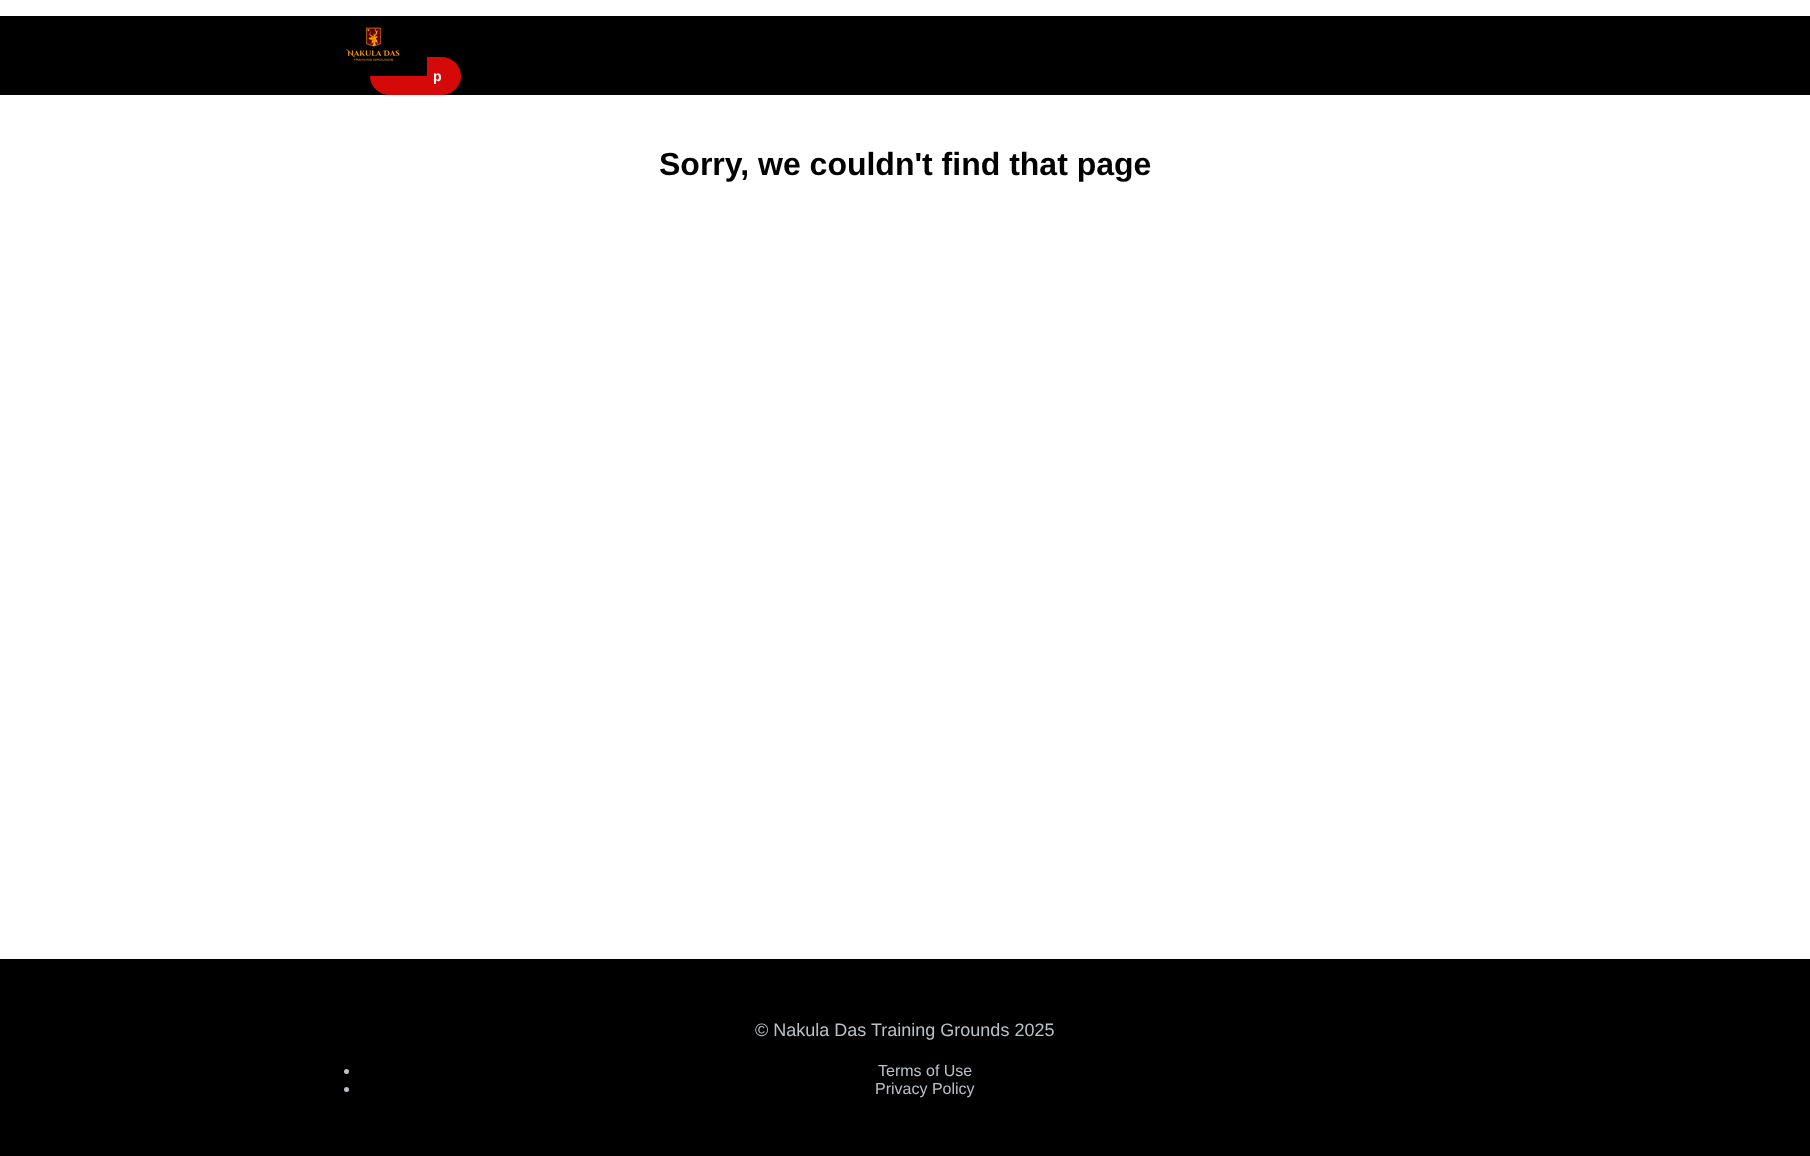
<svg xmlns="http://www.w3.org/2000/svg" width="1810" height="1156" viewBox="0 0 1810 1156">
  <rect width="100%" height="100%" fill="rgb(255,255,255)"/>
  <rect x="0" y="16" width="1810" height="79" fill="rgb(0,0,0)"/>
  <rect x="370.5" y="57.5" width="90" height="37" rx="18.5" fill="rgb(214,9,9)" stroke="rgb(214,9,9)"/>
  <image x="345" y="25" width="82" height="51" href="pic1.png"/>
  <text x="433" y="81" font-family="Liberation Sans" font-size="14" font-weight="bold" fill="rgb(255,255,255)">p</text>
  <text x="659" y="175" font-family="Liberation Sans" font-size="32" font-weight="bold" fill="rgb(0,0,0)">Sorry, we couldn't find that page</text>
  <rect x="0" y="959" width="1810" height="197" fill="rgb(0,0,0)"/>
  <text x="755" y="1036" font-family="Liberation Sans" font-size="18" fill="rgb(186,193,199)">© Nakula Das Training Grounds 2025</text>
  <circle cx="346.5" cy="1071.5" r="2.5" fill="rgb(186,193,199)"/>
  <text x="878" y="1076" font-family="Liberation Sans" font-size="16" fill="rgb(186,193,199)">Terms of Use</text>
  <circle cx="346.5" cy="1089.5" r="2.5" fill="rgb(186,193,199)"/>
  <text x="875" y="1094" font-family="Liberation Sans" font-size="16" fill="rgb(186,193,199)">Privacy Policy</text>
</svg>
